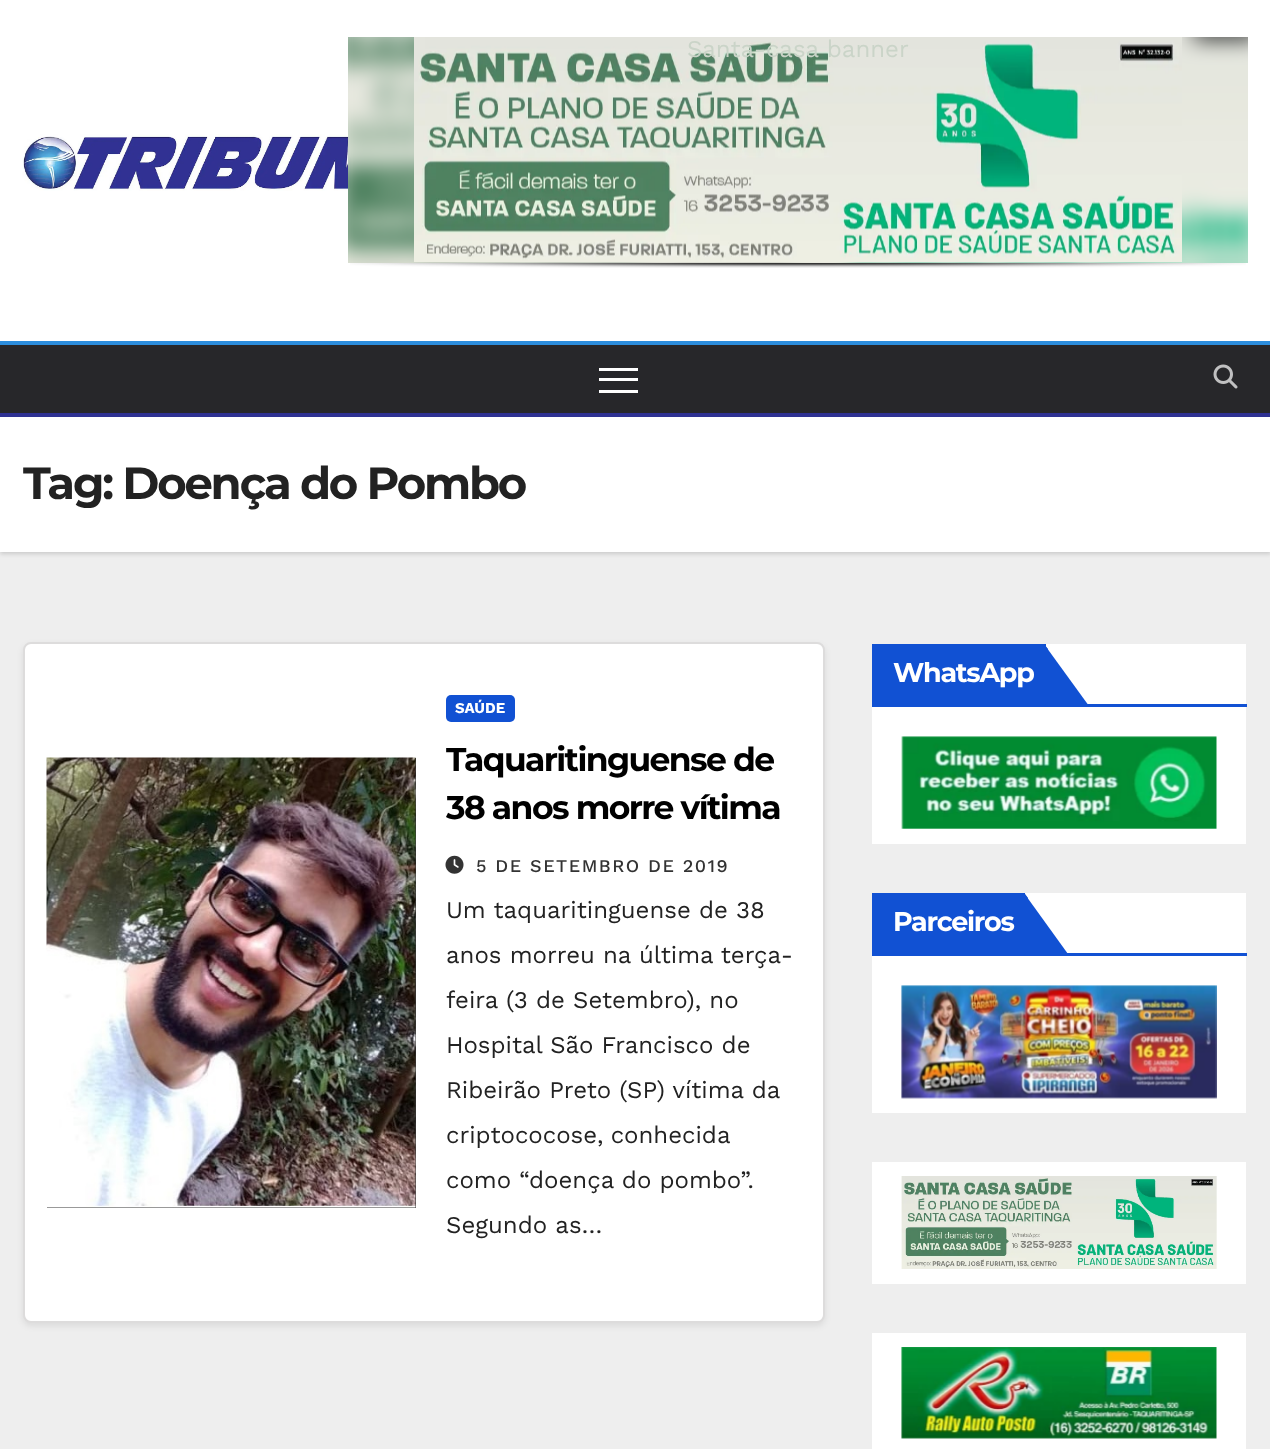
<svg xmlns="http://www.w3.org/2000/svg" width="1270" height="1449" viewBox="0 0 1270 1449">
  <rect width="100%" height="100%" fill="rgb(238,238,238)"/>
  <rect x="0" y="0" width="1270" height="341" fill="rgb(255,255,255)"/>
  <image x="350" y="262" width="896" height="6" href="pic3.png"/>
  <image x="22" y="134" width="329" height="57" href="pic4.png"/>
  <image x="348" y="37" width="900" height="226" href="pic1.png"/>
  <image x="414" y="37" width="768" height="225" href="pic2.png"/>
  <text x="687" y="57" font-family="Work Sans" font-size="24" fill="rgb(202,212,200)">Santa-casa banner</text>
  <rect x="0" y="341" width="1270" height="4" fill="rgb(44,141,221)"/>
  <rect x="0" y="419" width="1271" height="135" fill="rgba(0,0,0,0.15)" filter="blur(2px)"/>
  <rect x="0" y="413" width="1270" height="4" fill="rgb(46,49,146)"/>
  <rect x="0" y="345" width="1270" height="68" fill="rgb(39,39,42)"/>
  <rect x="599" y="368" width="39" height="3" fill="rgb(255,255,255)"/>
  <rect x="599" y="378" width="39" height="3" fill="rgb(255,255,255)"/>
  <rect x="599" y="390" width="39" height="3" fill="rgb(255,255,255)"/>
  <image x="1213" y="364" width="25" height="25" href="pic5.png"/>
  <rect x="0" y="417" width="1270" height="135" fill="rgb(255,255,255)"/>
  <text x="23" y="499" font-family="Montserrat" font-size="45" font-weight="bold" letter-spacing="-2.25" fill="rgb(34,34,34)">Tag: Doença do Pombo</text>
  <rect x="23" y="645" width="802" height="681" rx="8" fill="rgba(0,0,0,0.08)" filter="blur(3px)"/>
  <rect x="24" y="643" width="800" height="679" rx="7" fill="rgb(255,255,255)" stroke="rgb(221,220,220)" stroke-width="2"/>
  <rect x="47" y="758" width="369" height="450" fill="rgb(51,51,51)"/>
  <image x="46" y="757" width="370" height="451" href="pic6.png"/>
  <rect x="446" y="695" width="69" height="27" rx="5" fill="rgb(17,81,211)"/>
  <text x="455" y="713" font-family="Work Sans" font-size="15" font-weight="bold" fill="rgb(255,255,255)">SAÚDE</text>
  <g font-family="Montserrat" font-size="33" font-weight="bold" letter-spacing="-1.6" fill="rgb(0,0,0)">
    <text>
      <tspan x="446" y="771">Taquaritinguense de</tspan>
      <tspan x="446" y="819">38 anos morre vítima</tspan>
    </text>
  </g>
  <image x="445" y="855" width="19" height="19" href="pic7.png"/>
  <text x="476" y="872" font-family="Work Sans" font-size="18" font-weight="500" letter-spacing="1.5" fill="rgb(51,51,51)">5 DE SETEMBRO DE 2019</text>
  <g font-family="Work Sans" font-size="24" fill="rgb(34,34,34)">
    <text>
      <tspan x="446" y="918">Um taquaritinguense de 38</tspan>
      <tspan x="446" y="963">anos morreu na última terça-</tspan>
      <tspan x="446" y="1008">feira (3 de Setembro), no</tspan>
      <tspan x="446" y="1053">Hospital São Francisco de</tspan>
      <tspan x="446" y="1098">Ribeirão Preto (SP) vítima da</tspan>
      <tspan x="446" y="1143" word-spacing="-1">criptococose, conhecida</tspan>
      <tspan x="446" y="1188">como “doença do pombo”.</tspan>
      <tspan x="446" y="1233">Segundo as…</tspan>
    </text>
  </g>
  <rect x="872" y="644" width="374" height="200" fill="rgb(255,255,255)"/>
  <rect x="872" y="704" width="375" height="3" fill="rgb(17,81,211)"/>
  <rect x="872" y="644" width="174" height="60" fill="rgb(17,81,211)"/>
  <text x="893" y="682" font-family="Montserrat" font-size="27" font-weight="bold" letter-spacing="-1.25" fill="rgb(255,255,255)">WhatsApp</text>
  <path d="M1044 644V706H1089Z" fill="rgb(17,81,211)"/>
  <path d="M1044 706L1048 702V649L1044 644Z" fill="rgb(17,81,211)"/>
  <image x="901" y="736" width="316" height="93" href="pic8.png"/>
  <rect x="872" y="893" width="374" height="220" fill="rgb(255,255,255)"/>
  <rect x="872" y="953" width="375" height="3" fill="rgb(17,81,211)"/>
  <rect x="872" y="893" width="153" height="60" fill="rgb(17,81,211)"/>
  <text x="893" y="931" font-family="Montserrat" font-size="27" font-weight="bold" letter-spacing="-1.25" fill="rgb(255,255,255)">Parceiros</text>
  <path d="M1024 893V955H1068V954Z" fill="rgb(17,81,211)"/>
  <path d="M1025 894L1024 893V955L1028 951V898Z" fill="rgb(17,81,211)"/>
  <image x="901" y="985" width="316" height="114" href="pic9.png"/>
  <rect x="872" y="1162" width="374" height="122" fill="rgb(255,255,255)"/>
  <image x="901" y="1176" width="316" height="93" href="pic10.png"/>
  <rect x="872" y="1333" width="374" height="116" fill="rgb(255,255,255)"/>
  <image x="901" y="1347" width="316" height="92" href="pic11.png"/>
</svg>
